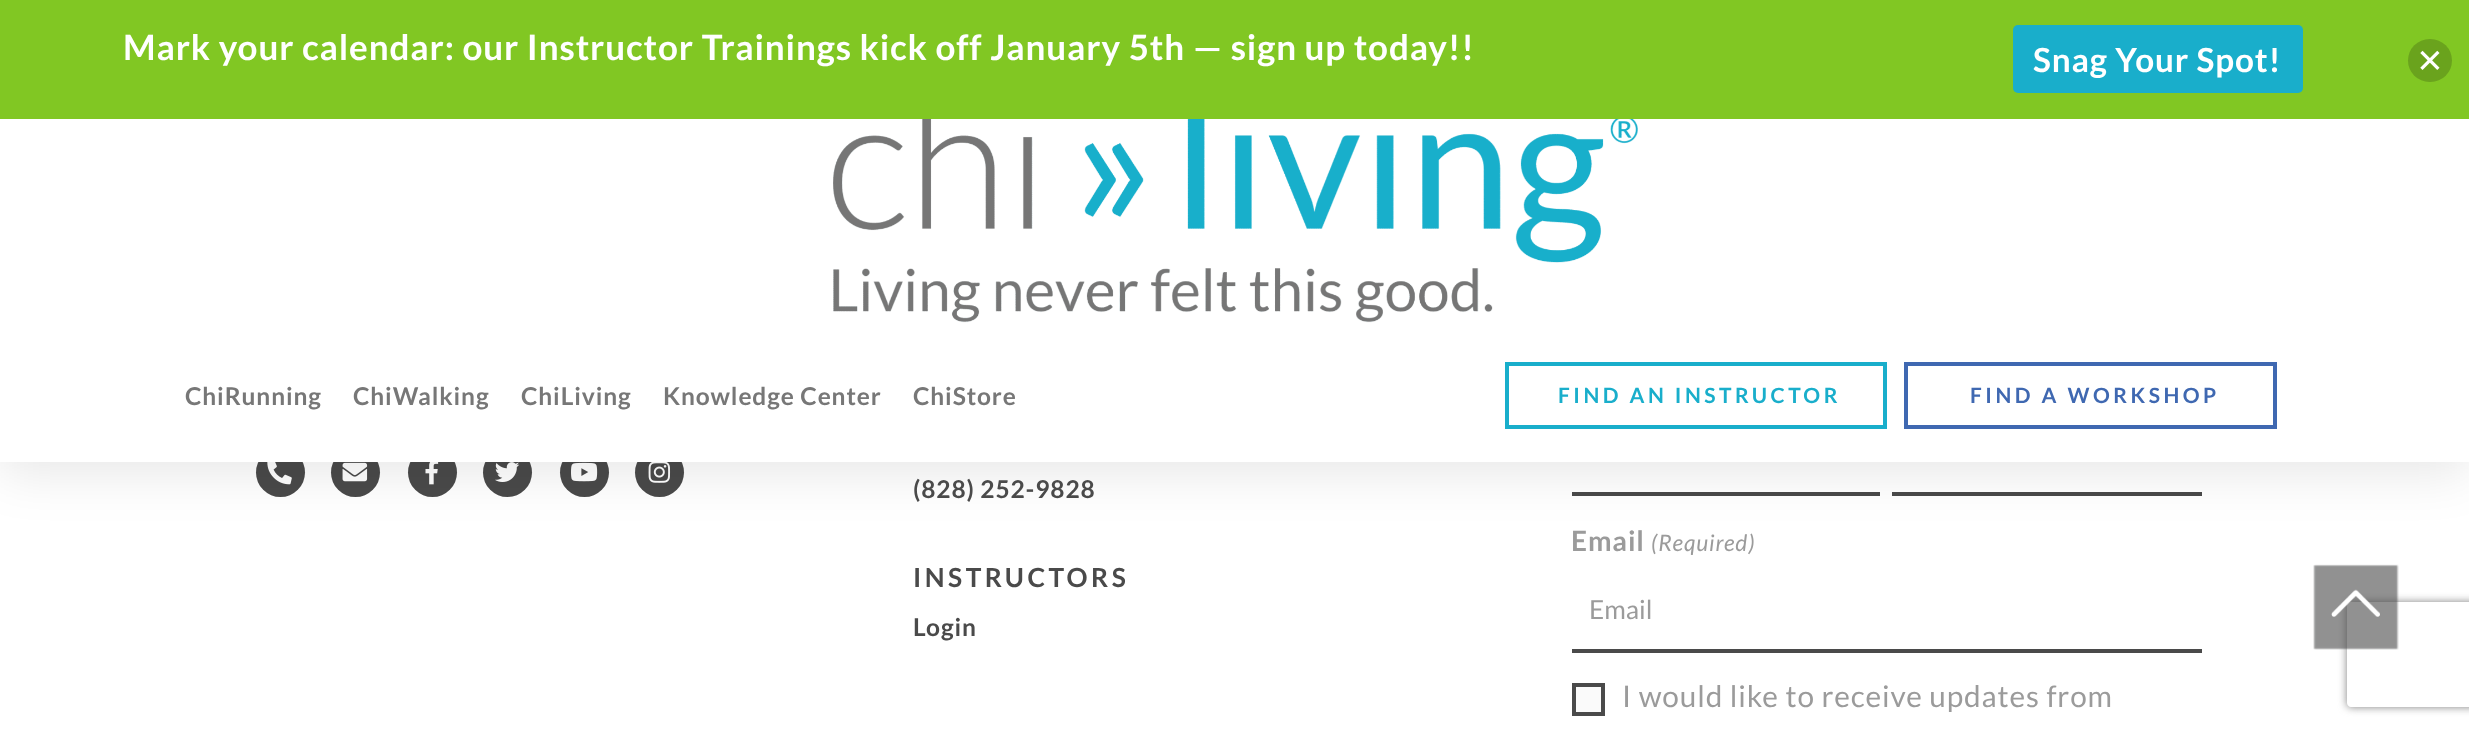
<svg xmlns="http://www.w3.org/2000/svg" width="2469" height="730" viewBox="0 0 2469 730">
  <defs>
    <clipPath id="clip1"><path d="M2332 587H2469V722H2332ZM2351 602H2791C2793 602 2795 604 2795 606V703C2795 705 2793 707 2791 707H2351C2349 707 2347 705 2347 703V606C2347 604 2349 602 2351 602Z" clip-rule="evenodd"/></clipPath>
  </defs>
  <rect width="100%" height="100%" fill="rgb(255,255,255)"/>
  <circle cx="280.5" cy="472.5" r="24.5" fill="rgb(74,74,74)"/>
  <image x="267" y="462" width="25" height="23" href="pic3.png"/>
  <circle cx="355.5" cy="472.5" r="24.5" fill="rgb(74,74,74)"/>
  <image x="342" y="462" width="26" height="20" href="pic4.png"/>
  <circle cx="432.5" cy="472.5" r="24.5" fill="rgb(74,74,74)"/>
  <image x="425" y="462" width="14" height="23" href="pic5.png"/>
  <circle cx="507.5" cy="472.5" r="24.5" fill="rgb(74,74,74)"/>
  <image x="495" y="462" width="25" height="20" href="pic6.png"/>
  <circle cx="584.5" cy="472.5" r="24.5" fill="rgb(74,74,74)"/>
  <image x="571" y="462" width="27" height="20" href="pic7.png"/>
  <circle cx="659.5" cy="472.5" r="24.5" fill="rgb(74,74,74)"/>
  <image x="648" y="462" width="23" height="21" href="pic8.png"/>
  <rect x="1572" y="492" width="308" height="4" fill="rgb(74,74,74)"/>
  <rect x="1892" y="492" width="310" height="4" fill="rgb(74,74,74)"/>
  <rect x="0" y="9" width="2469" height="462" fill="rgba(0,0,0,0.1)" filter="blur(26px)"/>
  <rect x="0" y="0" width="2469" height="119" fill="rgb(129,199,35)"/>
  <text x="123" y="60" font-family="Lato" font-size="35" font-weight="bold" letter-spacing="0.88" fill="rgb(255,255,255)">Mark your calendar: our Instructor Trainings kick off January 5th — sign up today!!</text>
  <rect x="2013" y="25" width="290" height="68" rx="5" fill="rgb(25,174,203)"/>
  <text x="2033" y="72" font-family="Lato" font-size="33.25" font-weight="bold" letter-spacing="0.88" fill="rgb(255,255,255)">Snag Your Spot!</text>
  <rect x="2408" y="39" width="44" height="43" rx="21.5" fill="rgb(106,163,29)"/>
  <image x="2420" y="50" width="20" height="20" href="pic1.png"/>
  <rect x="0" y="119" width="2469" height="343" fill="rgb(255,255,255)"/>
  <image x="833" y="119" width="805" height="204" href="pic2.png"/>
  <g font-family="Lato" font-size="24.5" font-weight="bold" letter-spacing="0.88" fill="rgb(119,119,119)">
    <text x="185" y="405">ChiRunning</text>
    <text x="353" y="405">ChiWalking</text>
    <text x="521" y="405">ChiLiving</text>
    <text x="663" y="405">Knowledge Center</text>
    <text x="913" y="405">ChiStore</text>
  </g>
  <rect x="1507" y="364" width="378" height="63" fill="none" stroke="rgb(25,174,203)" stroke-width="4"/>
  <text x="1558" y="403" font-family="Lato" font-size="21" font-weight="bold" letter-spacing="3.5" fill="rgb(25,174,203)">FIND AN INSTRUCTOR</text>
  <rect x="1906" y="364" width="369" height="63" fill="none" stroke="rgb(63,104,177)" stroke-width="4"/>
  <text x="1970" y="403" font-family="Lato" font-size="21" font-weight="bold" letter-spacing="3.5" fill="rgb(63,104,177)">FIND A WORKSHOP</text>
  <text x="913" y="498" font-family="Lato" font-size="24.5" font-weight="bold" letter-spacing="0.88" fill="rgb(74,74,74)">(828) 252-9828</text>
  <text x="913" y="587" font-family="Lato" font-size="26.25" font-weight="bold" letter-spacing="3.5" fill="rgb(74,74,74)">INSTRUCTORS</text>
  <text x="913" y="636" font-family="Lato" font-size="24.5" font-weight="bold" letter-spacing="0.88" fill="rgb(74,74,74)">Login</text>
  <text x="1571" y="551" font-family="Lato" font-size="28" font-weight="bold" letter-spacing="0.88" fill="rgb(155,155,155)">Email</text>
  <text x="1651" y="551" font-family="Lato" font-size="22.75" font-style="italic" letter-spacing="0.88" fill="rgb(155,155,155)">(Required)</text>
  <rect x="1572" y="649" width="630" height="4" fill="rgb(74,74,74)"/>
  <text x="1589" y="619" font-family="Lato" font-size="26.25" fill="rgb(155,155,155)">Email</text>
  <rect x="1574" y="685" width="29" height="29" fill="rgb(250,250,250)" stroke="rgb(74,74,74)" stroke-width="4"/>
  <text x="1622" y="707" font-family="Lato" font-size="29.75" letter-spacing="0.88" fill="rgb(155,155,155)">I would like to receive updates from</text>
  <g clip-path="url(#clip1)">
    <rect x="2347" y="602" width="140" height="105" rx="4" fill="rgb(128,128,128)" filter="blur(4.5px)"/>
  </g>
  <image x="2313" y="564" width="86" height="86" href="pic9.png"/>
</svg>
